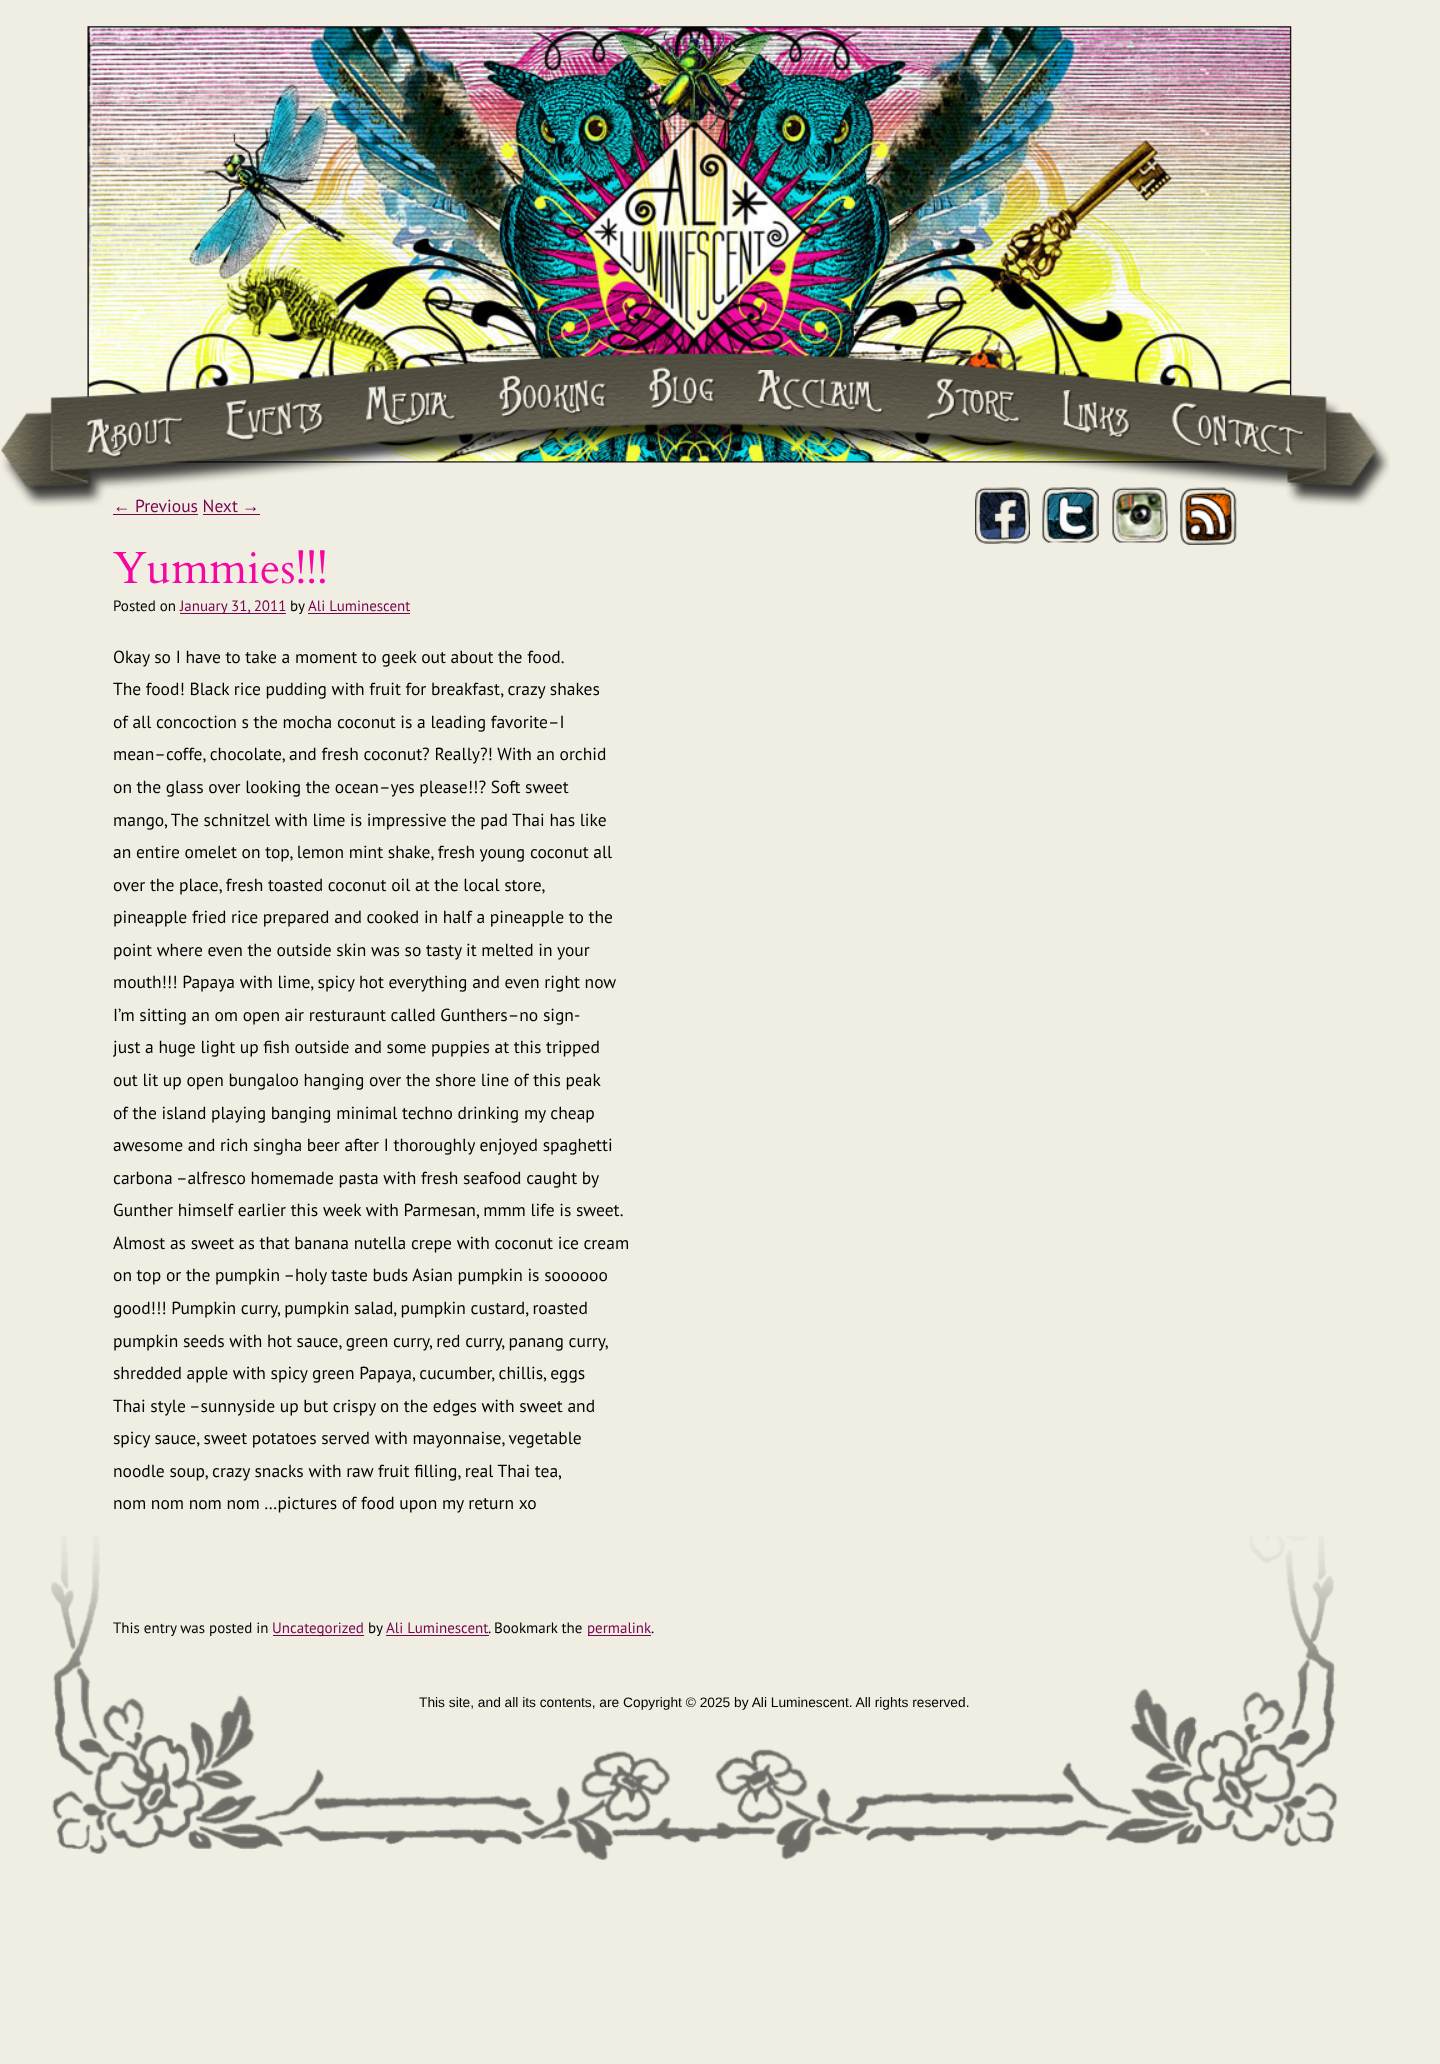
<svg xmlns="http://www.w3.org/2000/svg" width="1440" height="2064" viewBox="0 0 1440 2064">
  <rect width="100%" height="100%" fill="rgb(240,238,226)"/>
  <image x="87" y="26" width="1205" height="437" href="pic1.png"/>
  <image x="975" y="487" width="55" height="57" href="pic12.png"/>
  <image x="1042" y="487" width="57" height="56" href="pic13.png"/>
  <image x="1112" y="487" width="56" height="56" href="pic14.png"/>
  <image x="1180" y="487" width="57" height="58" href="pic15.png"/>
  <text x="135" y="512" font-family="PT Sans" font-size="17.5" fill="rgb(117,4,78)">Previous Next</text>
  <image x="1" y="353" width="1389" height="154" href="pic2.png"/>
  <image x="86" y="417" width="98" height="42" href="pic3.png"/>
  <image x="226" y="400" width="99" height="42" href="pic4.png"/>
  <image x="366" y="386" width="91" height="42" href="pic5.png"/>
  <image x="498" y="375" width="109" height="44" href="pic6.png"/>
  <image x="648" y="367" width="68" height="43" href="pic7.png"/>
  <image x="757" y="370" width="127" height="44" href="pic8.png"/>
  <image x="926" y="378" width="95" height="46" href="pic9.png"/>
  <image x="1062" y="390" width="69" height="49" href="pic10.png"/>
  <image x="1172" y="402" width="133" height="55" href="pic11.png"/>
  <text x="113" y="512" font-family="Liberation Sans" font-size="17.5" fill="rgb(117,4,78)">←</text>
  <rect x="113" y="514" width="85" height="1" fill="rgb(117,4,78)"/>
  <text x="242" y="512" font-family="Liberation Sans" font-size="17.5" fill="rgb(117,4,78)">→</text>
  <rect x="203" y="514" width="57" height="1" fill="rgb(117,4,78)"/>
  <text x="113" y="583" font-family="Cardo" font-size="45" fill="rgb(245,8,162)">Yummies!!!</text>
  <text x="113" y="611" font-family="PT Sans" font-size="15" fill="rgb(0,0,0)">Posted on</text>
  <rect x="180" y="613" width="106" height="1" fill="rgb(117,4,78)"/>
  <text x="180" y="611" font-family="PT Sans" font-size="15" fill="rgb(117,4,78)">January 31, 2011</text>
  <text x="290" y="611" font-family="PT Sans" font-size="15" fill="rgb(0,0,0)">by</text>
  <rect x="308" y="613" width="102" height="1" fill="rgb(117,4,78)"/>
  <text x="308" y="611" font-family="PT Sans" font-size="15" fill="rgb(117,4,78)">Ali Luminescent</text>
  <g font-family="PT Sans" font-size="17.5" fill="rgb(0,0,0)">
    <text>
      <tspan x="113" y="663">Okay so I have to take a moment to geek out about the food.</tspan>
      <tspan x="113" y="695">The food! Black rice pudding with fruit for breakfast, crazy shakes</tspan>
      <tspan x="113" y="728">of all concoction s the mocha coconut is a leading favorite–I</tspan>
      <tspan x="113" y="760">mean–coffe, chocolate, and fresh coconut? Really?! With an orchid</tspan>
      <tspan x="113" y="793">on the glass over looking the ocean–yes please!!? Soft sweet</tspan>
      <tspan x="113" y="826">mango, The schnitzel with lime is impressive the pad Thai has like</tspan>
      <tspan x="113" y="858">an entire omelet on top, lemon mint shake, fresh young coconut all</tspan>
      <tspan x="113" y="891">over the place, fresh toasted coconut oil at the local store,</tspan>
      <tspan x="113" y="923">pineapple fried rice prepared and cooked in half a pineapple to the</tspan>
      <tspan x="113" y="956">point where even the outside skin was so tasty it melted in your</tspan>
      <tspan x="113" y="988">mouth!!! Papaya with lime, spicy hot everything and even right now</tspan>
      <tspan x="113" y="1021">I’m sitting an om open air resturaunt called Gunthers–no sign-</tspan>
      <tspan x="113" y="1053">just a huge light up fish outside and some puppies at this tripped</tspan>
      <tspan x="113" y="1086">out lit up open bungaloo hanging over the shore line of this peak</tspan>
      <tspan x="113" y="1119">of the island playing banging minimal techno drinking my cheap</tspan>
      <tspan x="113" y="1151">awesome and rich singha beer after I thoroughly enjoyed spaghetti</tspan>
      <tspan x="113" y="1184">carbona –alfresco homemade pasta with fresh seafood caught by</tspan>
      <tspan x="113" y="1216">Gunther himself earlier this week with Parmesan, mmm life is sweet.</tspan>
      <tspan x="113" y="1249">Almost as sweet as that banana nutella crepe with coconut ice cream</tspan>
      <tspan x="113" y="1281">on top or the pumpkin –holy taste buds Asian pumpkin is soooooo</tspan>
      <tspan x="113" y="1314">good!!! Pumpkin curry, pumpkin salad, pumpkin custard, roasted</tspan>
      <tspan x="113" y="1347">pumpkin seeds with hot sauce, green curry, red curry, panang curry,</tspan>
      <tspan x="113" y="1379">shredded apple with spicy green Papaya, cucumber, chillis, eggs</tspan>
      <tspan x="113" y="1412">Thai style –sunnyside up but crispy on the edges with sweet and</tspan>
      <tspan x="113" y="1444">spicy sauce, sweet potatoes served with mayonnaise, vegetable</tspan>
      <tspan x="113" y="1477">noodle soup, crazy snacks with raw fruit filling, real Thai tea,</tspan>
      <tspan x="113" y="1509">nom nom nom nom …pictures of food upon my return xo</tspan>
    </text>
  </g>
  <text x="113" y="1633" font-family="PT Sans" font-size="15" fill="rgb(0,0,0)">This entry was posted in</text>
  <rect x="273" y="1635" width="91" height="1" fill="rgb(117,4,78)"/>
  <text x="272" y="1633" font-family="PT Sans" font-size="15" fill="rgb(117,4,78)">Uncategorized</text>
  <text x="368" y="1633" font-family="PT Sans" font-size="15" fill="rgb(0,0,0)">by</text>
  <text x="386" y="1633" font-family="PT Sans" font-size="15" fill="rgb(117,4,78)">Ali Luminescent</text>
  <rect x="386" y="1635" width="103" height="1" fill="rgb(117,4,78)"/>
  <text x="488" y="1633" font-family="PT Sans" font-size="15" fill="rgb(0,0,0)">. Bookmark the</text>
  <rect x="588" y="1635" width="63" height="1" fill="rgb(117,4,78)"/>
  <text x="587" y="1633" font-family="PT Sans" font-size="15" fill="rgb(117,4,78)">permalink</text>
  <text x="651" y="1633" font-family="PT Sans" font-size="15" fill="rgb(0,0,0)">.</text>
  <image x="50" y="1536" width="1288" height="324" href="pic16.png"/>
  <text x="419" y="1707" font-family="Liberation Sans" font-size="13.75" fill="rgb(0,0,0)">This site, and all its contents, are Copyright © 2025 by Ali Luminescent. All rights reserved.</text>
</svg>
